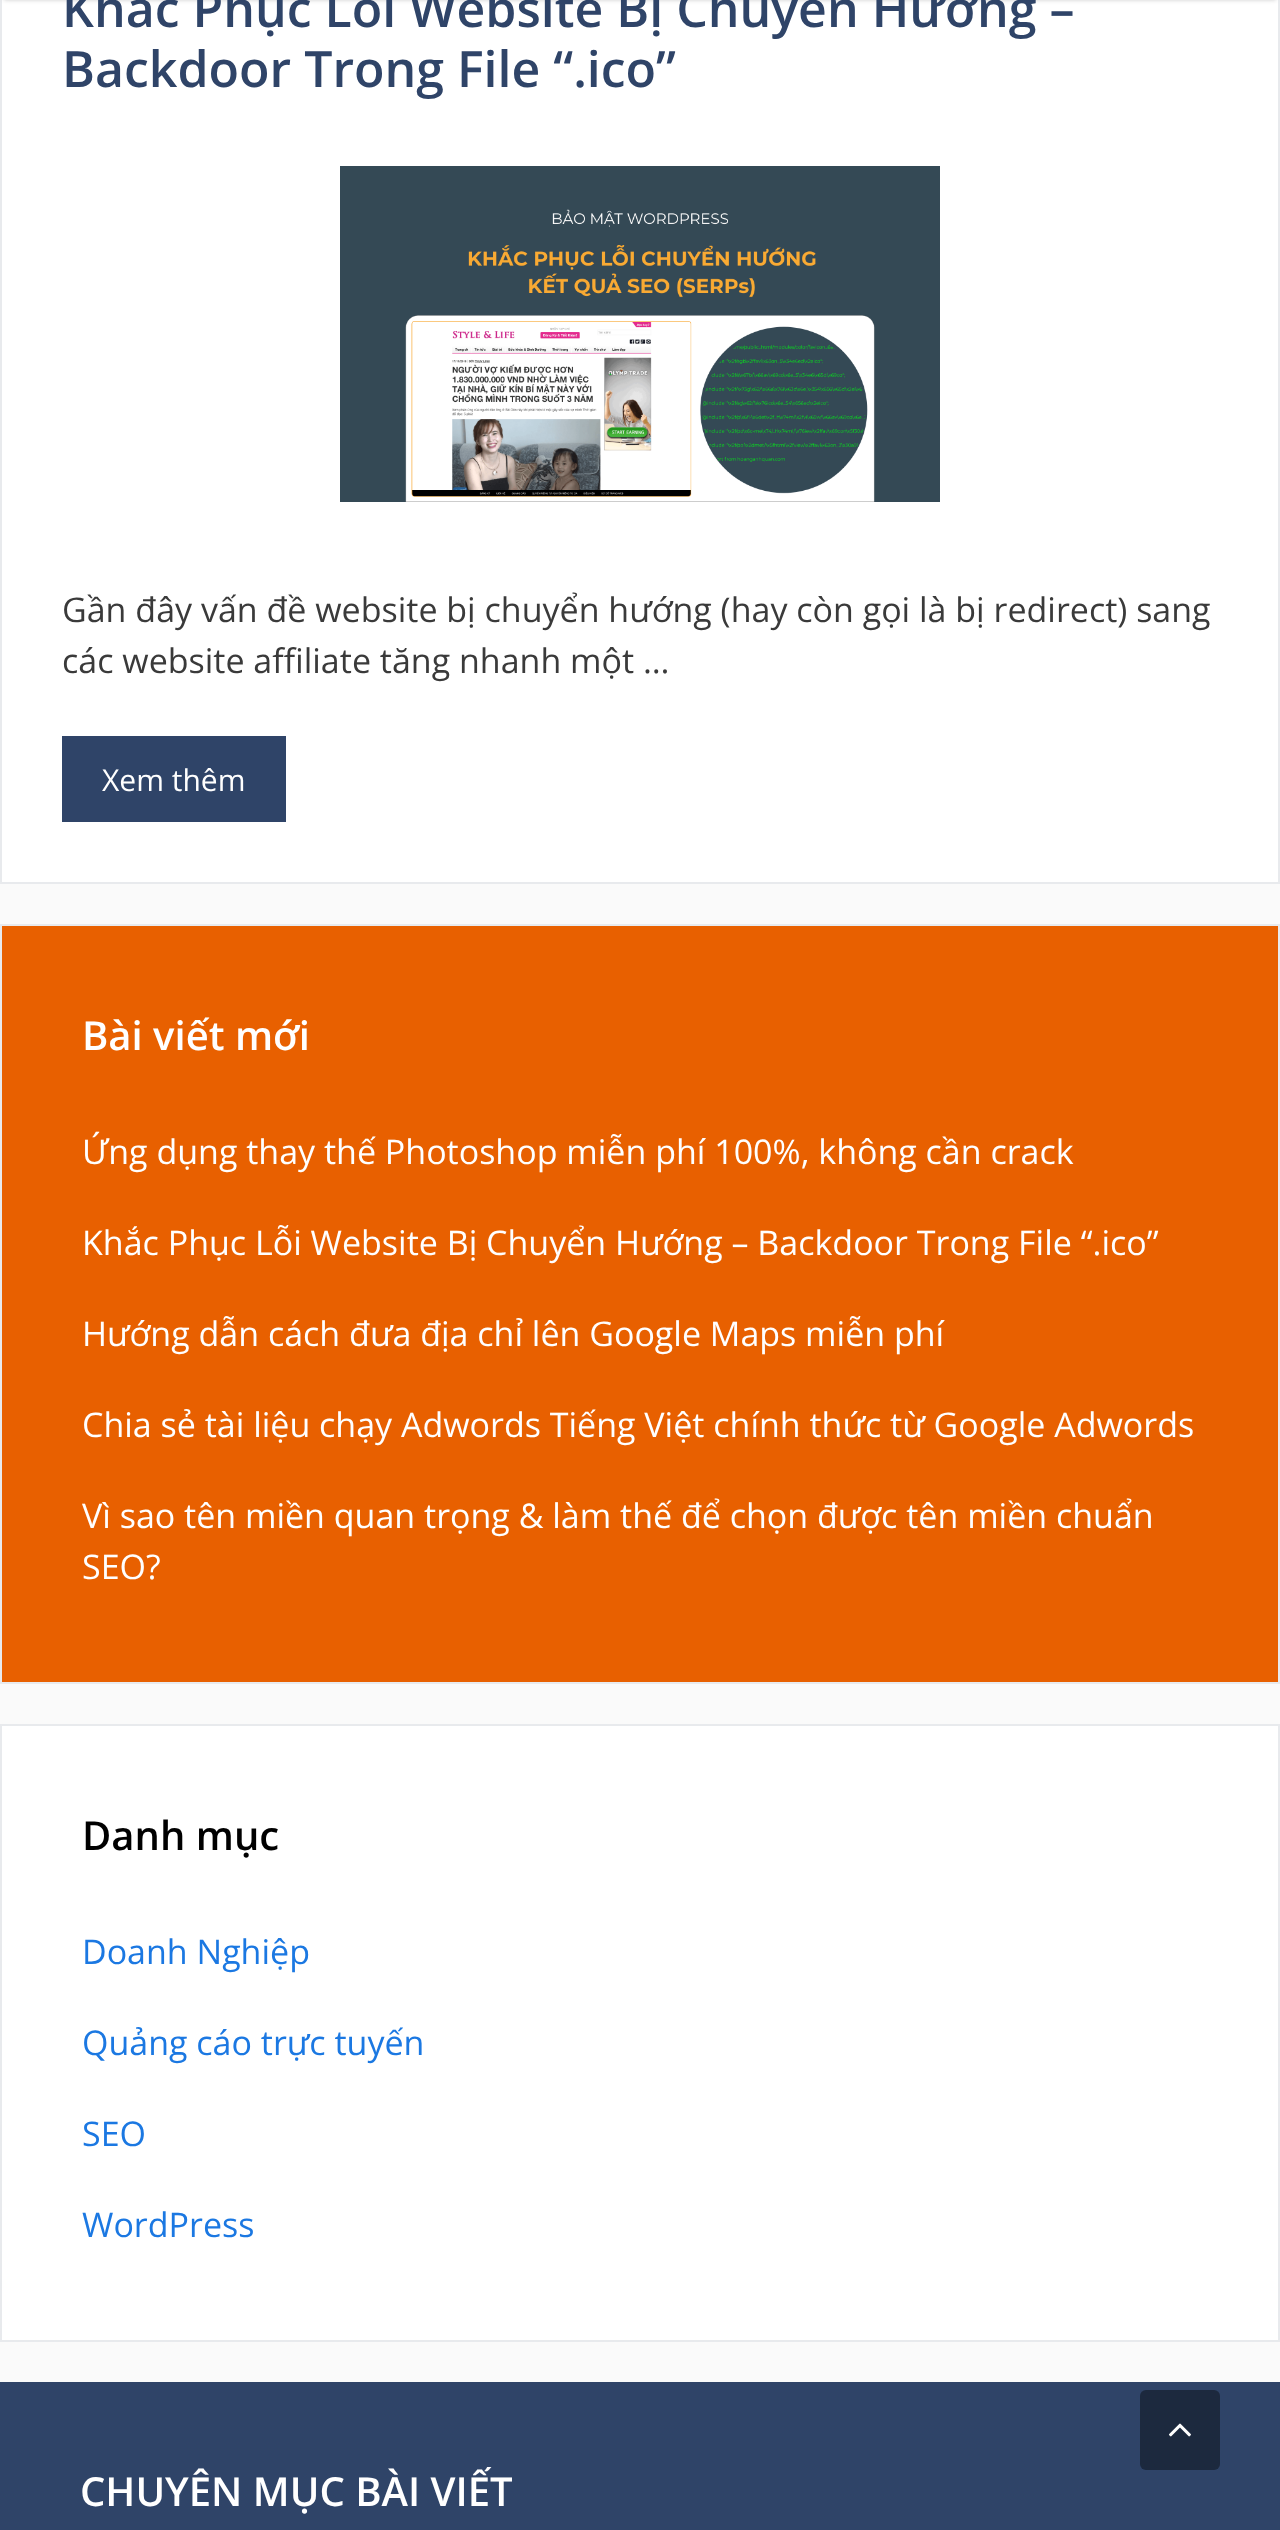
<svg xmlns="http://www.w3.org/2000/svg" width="1280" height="2530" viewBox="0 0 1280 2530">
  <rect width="100%" height="100%" fill="rgb(250,250,250)"/>
  <rect x="1" y="-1" width="1278" height="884" fill="rgb(255,255,255)" stroke="rgb(232,234,237)" stroke-width="2"/>
  <rect x="4" y="-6" width="1272" height="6" fill="rgba(0,0,0,0.2)" filter="blur(2px)"/>
  <g font-family="Open Sans" font-size="50" font-weight="600" fill="rgb(47,68,104)">
    <text>
      <tspan x="62" y="27">Khắc Phục Lỗi Website Bị Chuyển Hướng –</tspan>
      <tspan x="62" y="87">Backdoor Trong File “.ico”</tspan>
    </text>
  </g>
  <image x="340" y="166" width="600" height="336" href="pic1.png"/>
  <g font-family="Open Sans" font-size="34" fill="rgb(58,58,58)">
    <text>
      <tspan x="62" y="622">Gần đây vấn đề website bị chuyển hướng (hay còn gọi là bị redirect) sang</tspan>
      <tspan x="62" y="673">các website affiliate tăng nhanh một …</tspan>
    </text>
  </g>
  <rect x="62" y="736" width="224" height="86" fill="rgb(47,68,104)"/>
  <text x="102" y="791" font-family="Open Sans" font-size="30" fill="rgb(255,255,255)">Xem thêm</text>
  <rect x="1" y="925" width="1278" height="758" fill="rgb(232,96,0)" stroke="rgb(232,234,237)" stroke-width="2"/>
  <text x="82" y="1050" font-family="Open Sans" font-size="40" font-weight="600" fill="rgb(255,255,255)">Bài viết mới</text>
  <g font-family="Open Sans" font-size="34" fill="rgb(255,255,255)">
    <text x="82" y="1164">Ứng dụng thay thế Photoshop miễn phí 100%, không cần crack</text>
    <text x="82" y="1255">Khắc Phục Lỗi Website Bị Chuyển Hướng – Backdoor Trong File “.ico”</text>
    <text x="82" y="1346">Hướng dẫn cách đưa địa chỉ lên Google Maps miễn phí</text>
    <text x="82" y="1437">Chia sẻ tài liệu chạy Adwords Tiếng Việt chính thức từ Google Adwords</text>
    <text>
      <tspan x="82" y="1528">Vì sao tên miền quan trọng &amp; làm thế để chọn được tên miền chuẩn</tspan>
      <tspan x="82" y="1579">SEO?</tspan>
    </text>
  </g>
  <rect x="1" y="1725" width="1278" height="616" fill="rgb(255,255,255)" stroke="rgb(232,234,237)" stroke-width="2"/>
  <text x="82" y="1850" font-family="Open Sans" font-size="40" font-weight="600" fill="rgb(0,0,0)">Danh mục</text>
  <g font-family="Open Sans" font-size="34" fill="rgb(27,120,226)">
    <text x="82" y="1964">Doanh Nghiệp</text>
    <text x="82" y="2055">Quảng cáo trực tuyến</text>
    <text x="82" y="2146">SEO</text>
    <text x="82" y="2237">WordPress</text>
  </g>
  <rect x="0" y="2382" width="1280" height="148" fill="rgb(47,68,104)"/>
  <rect x="1140" y="2390" width="80" height="80" rx="6" fill="rgb(28,41,62)"/>
  <image x="1169" y="2423" width="22" height="14" href="pic2.png"/>
  <text x="80" y="2506" font-family="Open Sans" font-size="40" font-weight="600" fill="rgb(255,255,255)">CHUYÊN MỤC BÀI VIẾT</text>
</svg>
